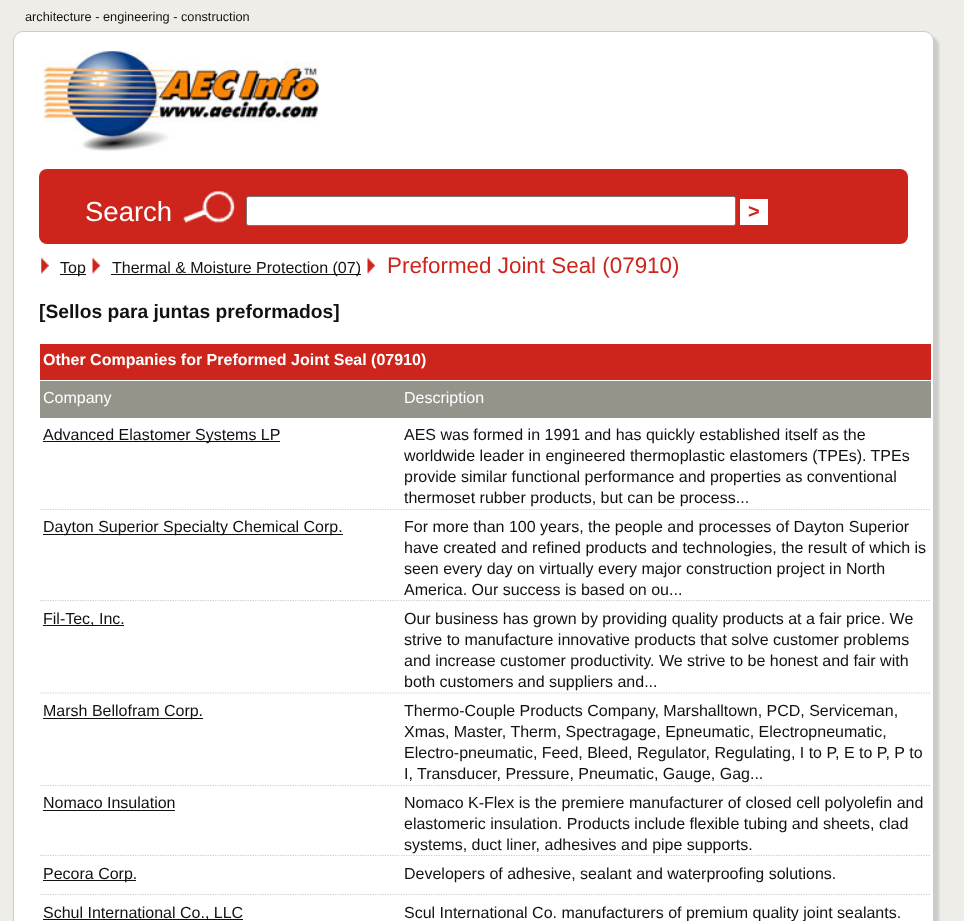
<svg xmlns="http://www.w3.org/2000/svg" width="964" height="921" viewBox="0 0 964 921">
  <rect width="100%" height="100%" fill="rgb(238,237,232)"/>
  <text x="25" y="21" font-family="Liberation Sans" font-size="12.75" fill="rgb(17,17,17)">architecture - engineering - construction</text>
  <rect x="18" y="36" width="921" height="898" rx="10" fill="rgb(204,204,204)" filter="blur(1px)"/>
  <rect x="13.5" y="31.5" width="920" height="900" rx="9.5" fill="rgb(255,255,255)" stroke="rgb(204,203,198)"/>
  <image x="43" y="51" width="276" height="101" href="pic1.png"/>
  <rect x="39" y="169" width="869" height="75" rx="8" fill="rgb(205,37,28)"/>
  <text x="85" y="221" font-family="Liberation Sans" font-size="27.5" fill="rgb(255,255,255)">Search</text>
  <image x="183" y="191" width="53" height="34" href="pic2.png"/>
  <rect x="246.5" y="196.5" width="489" height="29" rx="2" fill="rgb(255,255,255)" stroke="rgb(118,118,118)"/>
  <rect x="740" y="199" width="28" height="26" fill="rgb(255,255,255)"/>
  <text x="748" y="218" font-family="Liberation Sans" font-size="20" font-weight="bold" fill="rgb(205,37,28)">&gt;</text>
  <image x="41" y="257" width="8" height="17" href="pic3.png"/>
  <rect x="60" y="274" width="26" height="1" fill="rgb(17,17,17)"/>
  <text x="60" y="273" font-family="Liberation Sans" font-size="16" fill="rgb(17,17,17)">Top</text>
  <image x="92" y="257" width="8" height="17" href="pic4.png"/>
  <rect x="111" y="274" width="250" height="1" fill="rgb(17,17,17)"/>
  <text x="112" y="273" font-family="Liberation Sans" font-size="16" fill="rgb(17,17,17)">Thermal &amp; Moisture Protection (07)</text>
  <image x="367" y="257" width="8" height="17" href="pic5.png"/>
  <text x="387" y="273" font-family="Liberation Sans" font-size="22.4" fill="rgb(205,37,28)">Preformed Joint Seal (07910)</text>
  <text x="39" y="318" font-family="Liberation Sans" font-size="19.25" font-weight="bold" fill="rgb(17,17,17)">[Sellos para juntas preformados]</text>
  <rect x="40" y="344" width="891" height="36" fill="rgb(205,37,28)"/>
  <text x="43" y="365" font-family="Liberation Sans" font-size="16" font-weight="bold" fill="rgb(255,255,255)">Other Companies for Preformed Joint Seal (07910)</text>
  <rect x="40" y="381" width="891" height="37" fill="rgb(149,148,139)"/>
  <g font-family="Liberation Sans" font-size="16" fill="rgb(255,255,255)">
    <text x="43" y="403">Company</text>
    <text x="404" y="403">Description</text>
  </g>
  <path d="M40 509.5H400" fill="none" stroke="rgb(205,203,205)" stroke-width="1.2" stroke-dasharray="1.25 1.25"/>
  <rect x="43" y="441" width="237" height="1" fill="rgb(17,17,17)"/>
  <text x="43" y="440" font-family="Liberation Sans" font-size="16" fill="rgb(17,17,17)">Advanced Elastomer Systems LP</text>
  <path d="M401 509.5H931" fill="none" stroke="rgb(205,203,205)" stroke-width="1.2" stroke-dasharray="1.25 1.25"/>
  <g font-family="Liberation Sans" font-size="16" fill="rgb(17,17,17)">
    <text>
      <tspan x="404" y="440">AES was formed in 1991 and has quickly established itself as the</tspan>
      <tspan x="404" y="461">worldwide leader in engineered thermoplastic elastomers (TPEs). TPEs</tspan>
      <tspan x="404" y="482">provide similar functional performance and properties as conventional</tspan>
      <tspan x="404" y="503">thermoset rubber products, but can be process...</tspan>
    </text>
  </g>
  <path d="M40 600.5H400" fill="none" stroke="rgb(205,203,205)" stroke-width="1.2" stroke-dasharray="1.25 1.25"/>
  <rect x="43" y="534" width="300" height="1" fill="rgb(17,17,17)"/>
  <text x="43" y="532" font-family="Liberation Sans" font-size="16" fill="rgb(17,17,17)">Dayton Superior Specialty Chemical Corp.</text>
  <path d="M401 600.5H931" fill="none" stroke="rgb(205,203,205)" stroke-width="1.2" stroke-dasharray="1.25 1.25"/>
  <g font-family="Liberation Sans" font-size="16" fill="rgb(17,17,17)">
    <text>
      <tspan x="404" y="532">For more than 100 years, the people and processes of Dayton Superior</tspan>
      <tspan x="404" y="553">have created and refined products and technologies, the result of which is</tspan>
      <tspan x="404" y="574">seen every day on virtually every major construction project in North</tspan>
      <tspan x="404" y="595">America. Our success is based on ou...</tspan>
    </text>
  </g>
  <path d="M40 693H400" fill="none" stroke="rgb(205,203,205)" stroke-width="1.2" stroke-dasharray="1.25 1.25"/>
  <rect x="43" y="625" width="81" height="1" fill="rgb(17,17,17)"/>
  <text x="43" y="624" font-family="Liberation Sans" font-size="16" fill="rgb(17,17,17)">Fil-Tec, Inc.</text>
  <path d="M401 693H931" fill="none" stroke="rgb(205,203,205)" stroke-width="1.2" stroke-dasharray="1.25 1.25"/>
  <g font-family="Liberation Sans" font-size="16" fill="rgb(17,17,17)">
    <text>
      <tspan x="404" y="624">Our business has grown by providing quality products at a fair price. We</tspan>
      <tspan x="404" y="645">strive to manufacture innovative products that solve customer problems</tspan>
      <tspan x="404" y="666">and increase customer productivity. We strive to be honest and fair with</tspan>
      <tspan x="404" y="687">both customers and suppliers and...</tspan>
    </text>
  </g>
  <path d="M40 785.5H400" fill="none" stroke="rgb(205,203,205)" stroke-width="1.2" stroke-dasharray="1.25 1.25"/>
  <rect x="43" y="718" width="160" height="1" fill="rgb(17,17,17)"/>
  <text x="43" y="716" font-family="Liberation Sans" font-size="16" fill="rgb(17,17,17)">Marsh Bellofram Corp.</text>
  <path d="M401 785.5H931" fill="none" stroke="rgb(205,203,205)" stroke-width="1.2" stroke-dasharray="1.25 1.25"/>
  <g font-family="Liberation Sans" font-size="16" fill="rgb(17,17,17)">
    <text>
      <tspan x="404" y="716">Thermo-Couple Products Company, Marshalltown, PCD, Serviceman,</tspan>
      <tspan x="404" y="737">Xmas, Master, Therm, Spectragage, Epneumatic, Electropneumatic,</tspan>
      <tspan x="404" y="758">Electro-pneumatic, Feed, Bleed, Regulator, Regulating, I to P, E to P, P to</tspan>
      <tspan x="404" y="779">I, Transducer, Pressure, Pneumatic, Gauge, Gag...</tspan>
    </text>
  </g>
  <path d="M40 855.5H400" fill="none" stroke="rgb(205,203,205)" stroke-width="1.2" stroke-dasharray="1.25 1.25"/>
  <text x="43" y="808" font-family="Liberation Sans" font-size="16" fill="rgb(17,17,17)">Nomaco Insulation</text>
  <rect x="43" y="810" width="132" height="1" fill="rgb(17,17,17)"/>
  <path d="M401 855.5H931" fill="none" stroke="rgb(205,203,205)" stroke-width="1.2" stroke-dasharray="1.25 1.25"/>
  <g font-family="Liberation Sans" font-size="16" fill="rgb(17,17,17)">
    <text>
      <tspan x="404" y="808">Nomaco K-Flex is the premiere manufacturer of closed cell polyolefin and</tspan>
      <tspan x="404" y="829">elastomeric insulation. Products include flexible tubing and sheets, clad</tspan>
      <tspan x="404" y="850">systems, duct liner, adhesives and pipe supports.</tspan>
    </text>
  </g>
  <path d="M40 894.5H400" fill="none" stroke="rgb(205,203,205)" stroke-width="1.2" stroke-dasharray="1.25 1.25"/>
  <rect x="43" y="880" width="93" height="1" fill="rgb(17,17,17)"/>
  <text x="43" y="879" font-family="Liberation Sans" font-size="16" fill="rgb(17,17,17)">Pecora Corp.</text>
  <path d="M401 894.5H931" fill="none" stroke="rgb(205,203,205)" stroke-width="1.2" stroke-dasharray="1.25 1.25"/>
  <text x="404" y="879" font-family="Liberation Sans" font-size="16" fill="rgb(17,17,17)">Developers of adhesive, sealant and waterproofing solutions.</text>
  <rect x="43" y="919" width="200" height="1" fill="rgb(17,17,17)"/>
  <g font-family="Liberation Sans" font-size="16" fill="rgb(17,17,17)">
    <text x="43" y="918">Schul International Co., LLC</text>
    <text x="404" y="918">Scul International Co. manufacturers of premium quality joint sealants.</text>
  </g>
</svg>
